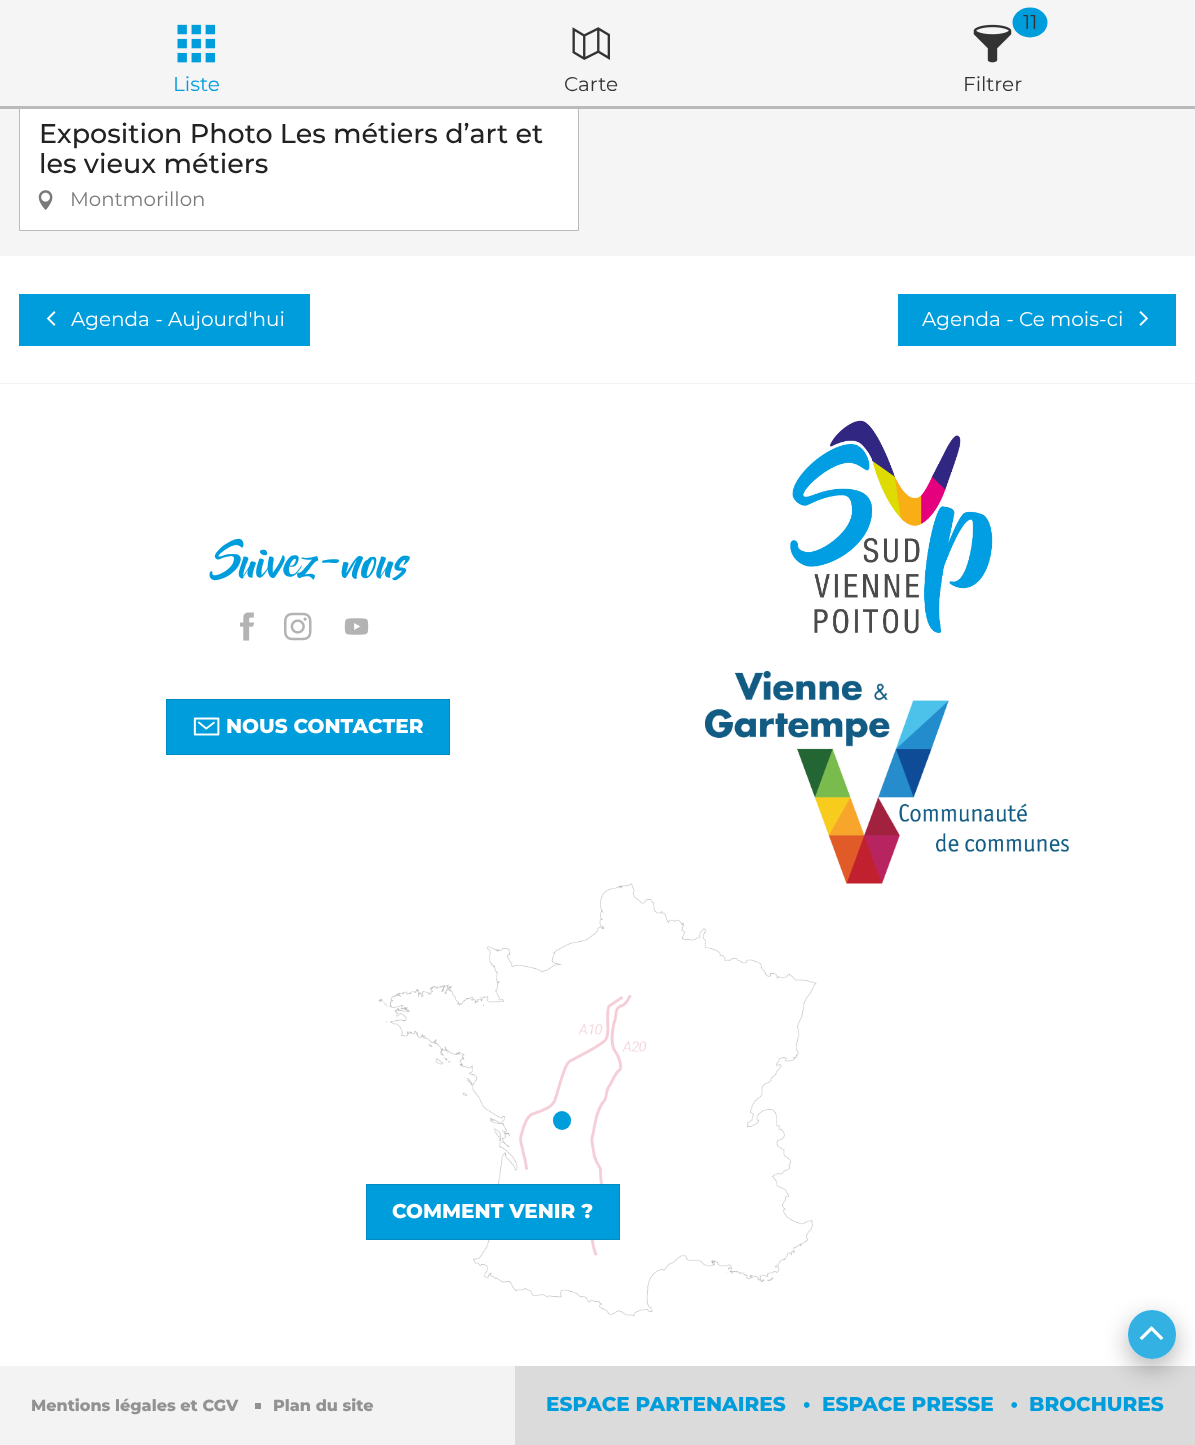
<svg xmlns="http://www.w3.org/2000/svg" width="1195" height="1445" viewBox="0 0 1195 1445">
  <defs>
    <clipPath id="clip1"><path d="M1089 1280H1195V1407H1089ZM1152 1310C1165.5 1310 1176 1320.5 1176 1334V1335C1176 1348.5 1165.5 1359 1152 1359C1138.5 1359 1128 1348.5 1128 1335V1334C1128 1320.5 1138.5 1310 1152 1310Z" clip-rule="evenodd"/></clipPath>
  </defs>
  <rect width="100%" height="100%" fill="rgb(255,255,255)"/>
  <rect x="0" y="0" width="1195" height="106" fill="rgb(245,245,245)"/>
  <rect x="0" y="106" width="1195" height="3" fill="rgb(186,186,186)"/>
  <image x="177" y="24" width="38" height="39" href="pic1.png"/>
  <text x="173" y="91" font-family="Montserrat" font-size="20" font-weight="100" fill="rgb(0,157,220)">Liste</text>
  <image x="572" y="27" width="38" height="33" href="pic2.png"/>
  <text x="564" y="91" font-family="Montserrat" font-size="20" font-weight="100" fill="rgb(51,51,51)">Carte</text>
  <ellipse cx="1030" cy="22.5" rx="17.5" ry="15" fill="rgb(0,157,220)"/>
  <text x="1023" y="29" font-family="Montserrat" font-size="20" font-weight="100" fill="rgb(51,51,51)">11</text>
  <image x="973" y="24" width="39" height="39" href="pic3.png"/>
  <text x="963" y="91" font-family="Montserrat" font-size="20" font-weight="100" fill="rgb(51,51,51)">Filtrer</text>
  <rect x="0" y="109" width="1195" height="147" fill="rgb(245,245,245)"/>
  <rect x="20" y="109" width="558" height="121" fill="rgb(255,255,255)"/>
  <rect x="578" y="109" width="1" height="122" fill="rgb(186,186,186)"/>
  <rect x="19" y="230" width="560" height="1" fill="rgb(186,186,186)"/>
  <rect x="19" y="109" width="1" height="122" fill="rgb(186,186,186)"/>
  <g font-family="'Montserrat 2'" font-size="27" font-weight="100" fill="rgb(34,34,34)">
    <text>
      <tspan x="39" y="143">Exposition Photo Les métiers d’art et</tspan>
      <tspan x="39" y="173">les vieux métiers</tspan>
    </text>
  </g>
  <image x="38" y="190" width="15" height="20" href="pic4.png"/>
  <text x="70" y="206" font-family="Montserrat" font-size="19.75" font-weight="100" fill="rgb(122,122,122)">Montmorillon</text>
  <rect x="19" y="294" width="291" height="52" fill="rgb(0,157,220)"/>
  <image x="46" y="311" width="10" height="15" href="pic5.png"/>
  <text x="71" y="326" font-family="Montserrat" font-size="20" font-weight="100" fill="rgb(255,255,255)">Agenda - Aujourd'hui</text>
  <rect x="898" y="294" width="278" height="52" fill="rgb(0,157,220)"/>
  <text x="922" y="326" font-family="Montserrat" font-size="20" font-weight="100" fill="rgb(255,255,255)">Agenda - Ce mois-ci</text>
  <image x="1139" y="311" width="10" height="15" href="pic6.png"/>
  <rect x="0" y="383" width="1195" height="1" fill="rgb(242,242,242)"/>
  <text x="209" y="578" font-family="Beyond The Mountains" font-size="40" font-style="italic" fill="rgb(0,157,220)">Suivez-nous</text>
  <image x="240" y="612" width="15" height="29" href="pic7.png"/>
  <image x="284" y="612" width="28" height="29" href="pic8.png"/>
  <image x="344" y="618" width="25" height="17" href="pic9.png"/>
  <rect x="166.5" y="699.5" width="283" height="55" fill="rgb(0,157,220)" stroke="rgb(0,139,195)"/>
  <image x="193" y="717" width="27" height="19" href="pic10.png"/>
  <text x="226" y="733" font-family="'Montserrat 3'" font-size="20" font-weight="100" fill="rgb(255,255,255)">NOUS CONTACTER</text>
  <image x="790" y="420" width="203" height="214" href="pic11.png"/>
  <rect x="553" y="1111" width="18" height="19" rx="9" fill="rgb(0,157,220)"/>
  <image x="378" y="883" width="439" height="433" href="pic13.png"/>
  <image x="705" y="671" width="364" height="213" href="pic12.png"/>
  <rect x="366.5" y="1184.5" width="253" height="55" fill="rgb(0,157,220)" stroke="rgb(0,139,195)"/>
  <text x="392" y="1218" font-family="'Montserrat 3'" font-size="20" font-weight="100" fill="rgb(255,255,255)">COMMENT VENIR ?</text>
  <rect x="0" y="1366" width="515" height="79" fill="rgb(243,243,243)"/>
  <text x="31" y="1411" font-family="'Montserrat 3'" font-size="16" font-weight="100" fill="rgb(146,146,146)">Mentions légales et CGV</text>
  <rect x="255" y="1403" width="6" height="6" fill="rgb(146,146,146)"/>
  <text x="273" y="1411" font-family="'Montserrat 3'" font-size="16" font-weight="100" fill="rgb(146,146,146)">Plan du site</text>
  <rect x="515" y="1366" width="680" height="79" fill="rgb(219,219,219)"/>
  <text x="546" y="1411" font-family="'Montserrat 3'" font-size="20" font-weight="100" fill="rgb(0,157,220)">ESPACE PARTENAIRES</text>
  <image x="803" y="1402" width="7" height="6" href="pic14.png"/>
  <text x="822" y="1411" font-family="'Montserrat 3'" font-size="20" font-weight="100" fill="rgb(0,157,220)">ESPACE PRESSE</text>
  <image x="1011" y="1402" width="6" height="6" href="pic15.png"/>
  <text x="1029" y="1411" font-family="'Montserrat 3'" font-size="20" font-weight="100" fill="rgb(0,157,220)">BROCHURES</text>
  <g clip-path="url(#clip1)">
    <rect x="1128" y="1319" width="48" height="49" rx="24" fill="rgba(0,0,0,0.3)" filter="blur(12.5px)"/>
  </g>
  <rect x="1128" y="1310" width="48" height="49" rx="24" fill="rgba(0,157,220,0.8)"/>
  <path d="M1161 1340L1163.5 1338L1151.5 1326L1139.5 1338L1142 1340L1151.5 1330.5Z" fill="rgb(255,255,255)"/>
</svg>
